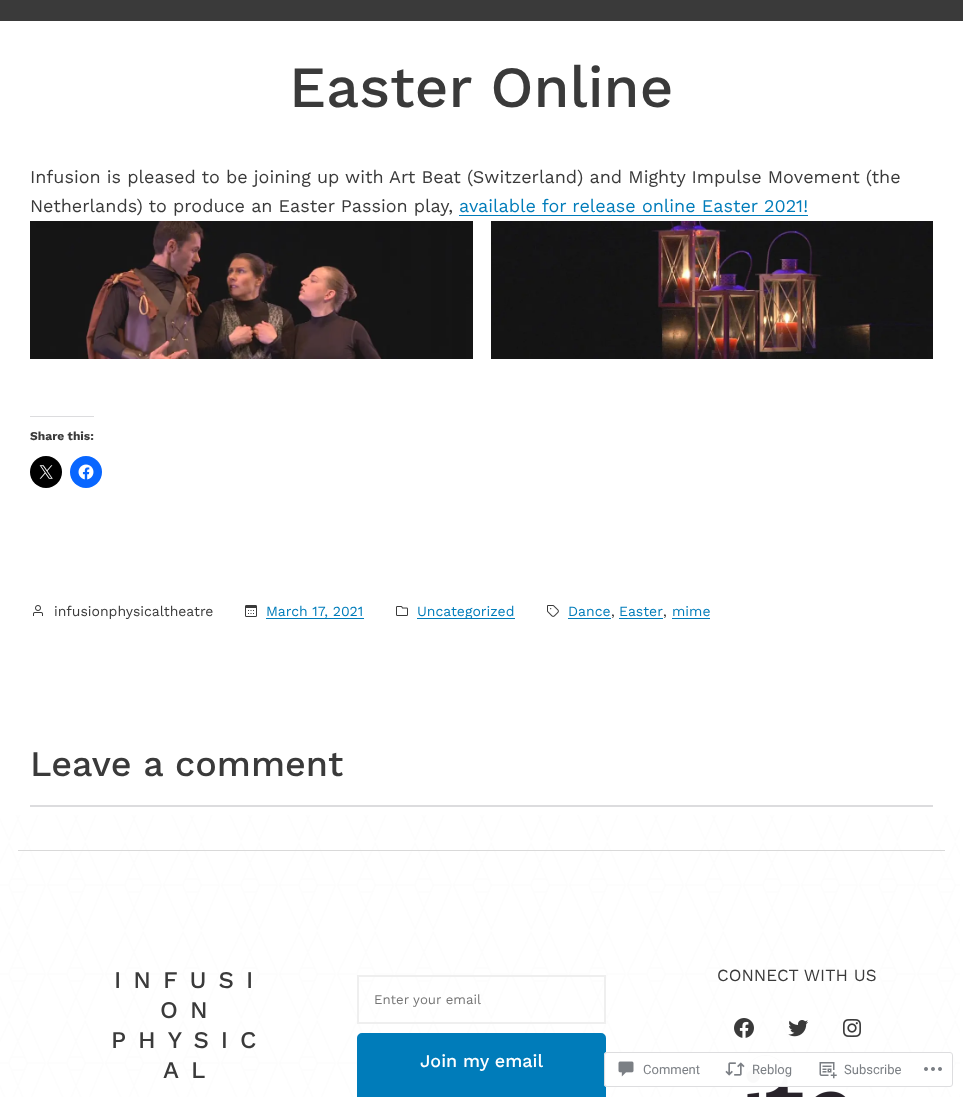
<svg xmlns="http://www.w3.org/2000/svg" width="963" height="1097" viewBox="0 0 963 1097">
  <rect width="100%" height="100%" fill="rgb(255,255,255)"/>
  <rect x="0" y="0" width="963" height="21" fill="rgb(58,58,58)"/>
  <text x="289" y="107" font-family="Work Sans" font-size="58.25" font-weight="500" fill="rgb(58,58,58)">Easter Online</text>
  <g font-family="Work Sans" font-size="18" fill="rgb(58,58,58)">
    <text>
      <tspan x="30" y="183">Infusion is pleased to be joining up with Art Beat (Switzerland) and Mighty Impulse Movement (the</tspan>
      <tspan x="30" y="212">Netherlands) to produce an Easter Passion play,</tspan>
    </text>
  </g>
  <text x="459" y="212" font-family="Work Sans" font-size="18" fill="rgb(0,124,186)">available for release online Easter 2021!</text>
  <rect x="459" y="215" width="349" height="1" fill="rgb(0,124,186)"/>
  <image x="30" y="221" width="443" height="138" href="pic1.png"/>
  <image x="491" y="221" width="442" height="138" href="pic2.png"/>
  <rect x="30" y="416" width="64" height="1" fill="rgb(220,220,222)"/>
  <text x="30" y="440" font-family="Work Sans" font-size="12" font-weight="bold" fill="rgb(58,58,58)">Share this:</text>
  <circle cx="46" cy="472" r="16" fill="rgb(0,0,0)"/>
  <image x="39" y="465" width="14" height="14" href="pic3.png"/>
  <circle cx="86" cy="472" r="16" fill="rgb(8,102,255)"/>
  <image x="78" y="464" width="16" height="16" href="pic4.png"/>
  <image x="33" y="605" width="10" height="11" href="pic5.png"/>
  <text x="54" y="616" font-family="Work Sans" font-size="14" fill="rgb(58,58,58)">infusionphysicaltheatre</text>
  <image x="245" y="605" width="12" height="12" href="pic6.png"/>
  <text x="266" y="616" font-family="Work Sans" font-size="14" fill="rgb(0,124,186)">March 17, 2021</text>
  <rect x="266" y="618" width="98" height="1" fill="rgb(0,124,186)"/>
  <image x="396" y="606" width="12" height="10" href="pic7.png"/>
  <rect x="417" y="618" width="98" height="1" fill="rgb(0,124,186)"/>
  <text x="417" y="616" font-family="Work Sans" font-size="14" fill="rgb(0,124,186)">Uncategorized</text>
  <image x="547" y="605" width="12" height="12" href="pic8.png"/>
  <text x="568" y="616" font-family="Work Sans" font-size="14" fill="rgb(0,124,186)">Dance</text>
  <rect x="568" y="618" width="43" height="1" fill="rgb(0,124,186)"/>
  <text x="611" y="616" font-family="Work Sans" font-size="14" fill="rgb(58,58,58)">,</text>
  <text x="619" y="616" font-family="Work Sans" font-size="14" fill="rgb(0,124,186)">Easter</text>
  <rect x="619" y="618" width="44" height="1" fill="rgb(0,124,186)"/>
  <text x="663" y="616" font-family="Work Sans" font-size="14" fill="rgb(58,58,58)">,</text>
  <text x="672" y="616" font-family="Work Sans" font-size="14" fill="rgb(0,124,186)">mime</text>
  <rect x="672" y="618" width="38" height="1" fill="rgb(0,124,186)"/>
  <text x="30" y="776" font-family="Work Sans" font-size="36" font-weight="500" fill="rgb(58,58,58)">Leave a comment</text>
  <rect x="30" y="805" width="903" height="2" fill="rgb(220,220,222)"/>
  <image x="0" y="815" width="960" height="282" href="pic9.png"/>
  <rect x="18" y="850" width="927" height="1" fill="rgb(217,217,217)"/>
  <g font-family="Work Sans" font-size="24" font-weight="500" letter-spacing="12" fill="rgb(58,58,58)">
    <text x="114" y="988">INFUSI</text>
    <text x="160" y="1018">ON</text>
    <text x="111" y="1048">PHYSIC</text>
    <text x="163" y="1078">AL</text>
  </g>
  <rect x="358" y="976" width="247" height="47" fill="none" stroke="rgb(239,239,239)" stroke-width="2"/>
  <text x="374" y="1004" font-family="Work Sans" font-size="13.25" fill="rgb(117,117,117)">Enter your email</text>
  <rect x="358" y="1034" width="247" height="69" rx="4" fill="rgb(0,124,186)" stroke="rgb(0,124,186)" stroke-width="2"/>
  <text x="420" y="1067" font-family="Work Sans" font-size="18" font-weight="500" fill="rgb(255,255,255)">Join my email</text>
  <text x="717" y="981" font-family="Work Sans" font-size="17" fill="rgb(58,58,58)">CONNECT WITH US</text>
  <image x="734" y="1018" width="20" height="20" href="pic10.png"/>
  <image x="788" y="1020" width="20" height="17" href="pic11.png"/>
  <image x="843" y="1019" width="18" height="18" href="pic12.png"/>
  <image x="746" y="1055" width="100" height="42" href="pic13.png"/>
  <rect x="604" y="1052" width="349" height="35" rx="3" fill="rgba(255,255,255,0.98)"/>
  <rect x="604.5" y="1052.5" width="348" height="34" rx="2.5" fill="none" stroke="rgba(220,220,222,0.98)"/>
  <image x="618" y="1061" width="16" height="16" href="pic14.png"/>
  <text x="643" y="1074" font-family="Roboto" font-size="13" fill="rgb(123,127,132)">Comment</text>
  <image x="725" y="1062" width="20" height="14" href="pic15.png"/>
  <text x="752" y="1074" font-family="Roboto" font-size="13" fill="rgb(123,127,132)">Reblog</text>
  <image x="819" y="1062" width="18" height="17" href="pic16.png"/>
  <text x="844" y="1074" font-family="Roboto" font-size="13" fill="rgb(123,127,132)">Subscribe</text>
  <image x="924" y="1067" width="18" height="4" href="pic17.png"/>
</svg>
